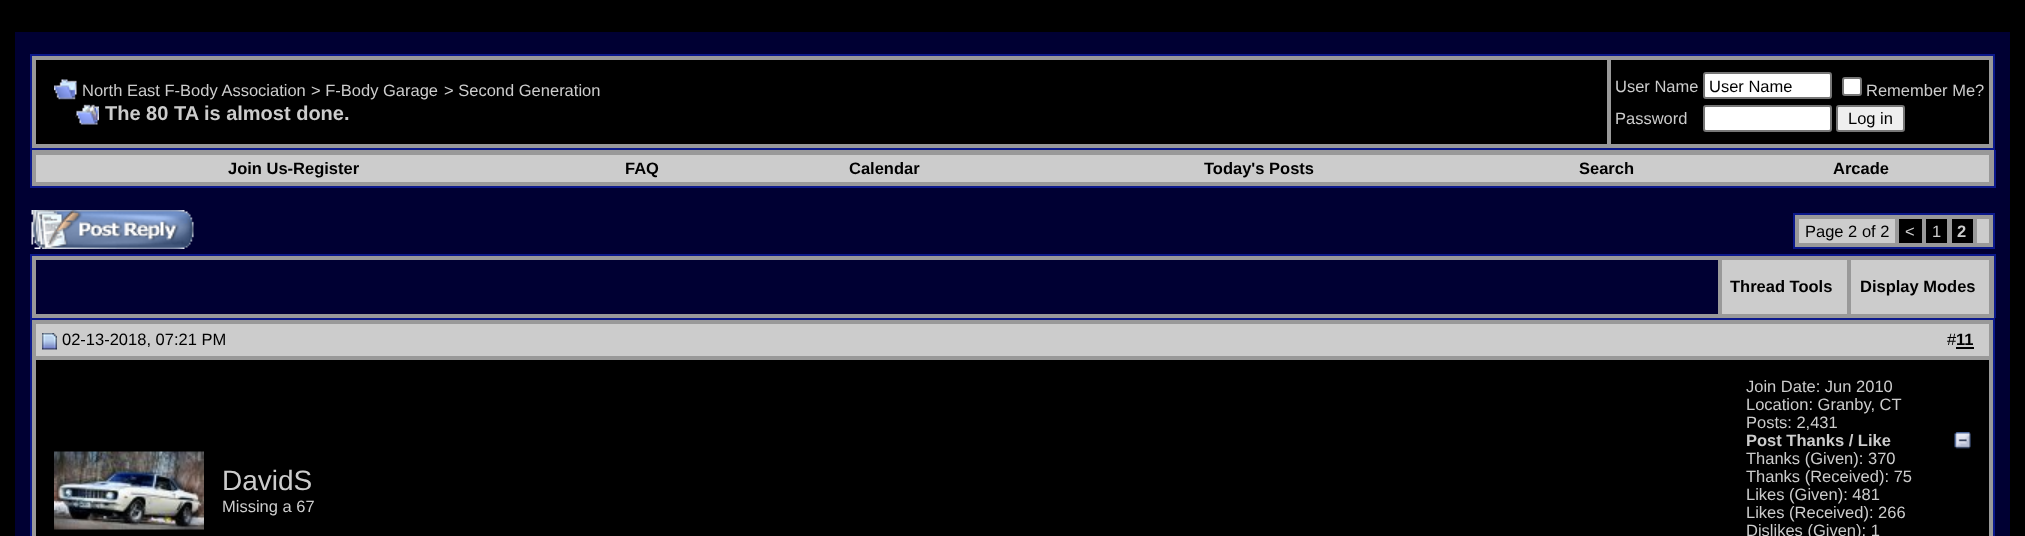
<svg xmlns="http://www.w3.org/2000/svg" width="2025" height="536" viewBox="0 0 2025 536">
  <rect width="100%" height="100%" fill="rgb(0,0,0)"/>
  <rect x="15" y="32" width="1995" height="504" fill="rgb(0,0,51)"/>
  <rect x="31" y="55" width="1963" height="94" fill="rgb(153,153,153)" stroke="rgb(11,25,140)" stroke-width="2"/>
  <rect x="36" y="60" width="1571" height="84" fill="rgb(0,0,0)"/>
  <image x="54" y="79" width="23" height="21" href="pic1.png"/>
  <g font-family="Liberation Sans" font-size="16.5" fill="rgb(204,204,204)">
    <text x="82" y="96">North East F-Body Association</text>
    <text x="311" y="96">&gt; F-Body Garage</text>
    <text x="444" y="96">&gt; Second Generation</text>
  </g>
  <image x="75" y="104" width="24" height="21" href="pic2.png"/>
  <text x="105" y="120" font-family="Liberation Sans" font-size="20" font-weight="bold" fill="rgb(204,204,204)">The 80 TA is almost done.</text>
  <rect x="1611" y="60" width="378" height="84" fill="rgb(0,0,0)"/>
  <text x="1615" y="92" font-family="Liberation Sans" font-size="16.5" fill="rgb(204,204,204)">User Name</text>
  <rect x="1704" y="73" width="127" height="25" rx="2" fill="rgb(255,255,255)" stroke="rgb(118,118,118)" stroke-width="2"/>
  <text x="1709" y="92" font-family="Liberation Sans" font-size="16.5" fill="rgb(0,0,0)">User Name</text>
  <rect x="1843" y="78" width="18" height="17" rx="2" fill="rgb(255,255,255)" stroke="rgb(118,118,118)" stroke-width="2"/>
  <g font-family="Liberation Sans" font-size="16.5" fill="rgb(204,204,204)">
    <text x="1866" y="96">Remember Me?</text>
    <text x="1615" y="124">Password</text>
  </g>
  <rect x="1704" y="106" width="127" height="25" rx="2" fill="rgb(255,255,255)" stroke="rgb(118,118,118)" stroke-width="2"/>
  <rect x="1837" y="106" width="67" height="25" rx="2" fill="rgb(239,239,239)" stroke="rgb(118,118,118)" stroke-width="2"/>
  <text x="1848" y="124" font-family="Liberation Sans" font-size="16.5" fill="rgb(0,0,0)">Log in</text>
  <rect x="32" y="150" width="1962" height="36" fill="rgb(153,153,153)"/>
  <rect x="1994" y="150" width="2" height="38" fill="rgb(11,25,140)"/>
  <rect x="30" y="186" width="1965" height="2" fill="rgb(11,25,140)"/>
  <rect x="30" y="150" width="2" height="38" fill="rgb(11,25,140)"/>
  <rect x="36" y="155" width="1953" height="27" fill="rgb(204,204,204)"/>
  <g font-family="Liberation Sans" font-size="16.5" font-weight="bold" fill="rgb(0,0,0)">
    <text x="228" y="174">Join Us-Register</text>
    <text x="625" y="174">FAQ</text>
    <text x="849" y="174">Calendar</text>
    <text x="1204" y="174">Today's Posts</text>
    <text x="1579" y="174">Search</text>
    <text x="1833" y="174">Arcade</text>
  </g>
  <image x="31" y="210" width="163" height="39" href="pic3.png"/>
  <rect x="1794" y="214" width="200" height="34" fill="rgb(153,153,153)" stroke="rgb(11,25,140)" stroke-width="2"/>
  <rect x="1799" y="219" width="96" height="24" fill="rgb(204,204,204)"/>
  <text x="1805" y="237" font-family="Liberation Sans" font-size="16.5" fill="rgb(0,0,0)">Page 2 of 2</text>
  <rect x="1899" y="219" width="23" height="24" fill="rgb(0,0,0)"/>
  <text x="1905" y="237" font-family="Liberation Sans" font-size="16.5" fill="rgb(204,204,204)">&lt;</text>
  <rect x="1926" y="219" width="21" height="24" fill="rgb(0,0,0)"/>
  <text x="1932" y="237" font-family="Liberation Sans" font-size="16.5" fill="rgb(204,204,204)">1</text>
  <rect x="1952" y="219" width="21" height="24" fill="rgb(0,0,0)"/>
  <text x="1957" y="237" font-family="Liberation Sans" font-size="16.5" font-weight="bold" fill="rgb(204,204,204)">2</text>
  <rect x="1977" y="219" width="12" height="24" fill="rgb(204,204,204)"/>
  <rect x="32" y="256" width="1962" height="62" fill="rgb(153,153,153)"/>
  <rect x="30" y="254" width="1965" height="2" fill="rgb(11,25,140)"/>
  <rect x="1994" y="254" width="2" height="64" fill="rgb(11,25,140)"/>
  <rect x="30" y="254" width="2" height="64" fill="rgb(11,25,140)"/>
  <rect x="36" y="260" width="1682" height="54" fill="rgb(0,0,51)"/>
  <rect x="1722" y="260" width="125" height="54" fill="rgb(204,204,204)"/>
  <text x="1730" y="292" font-family="Liberation Sans" font-size="16.5" font-weight="bold" fill="rgb(0,0,0)">Thread Tools</text>
  <rect x="1851" y="260" width="138" height="54" fill="rgb(204,204,204)"/>
  <text x="1860" y="292" font-family="Liberation Sans" font-size="16.5" font-weight="bold" fill="rgb(0,0,0)">Display Modes</text>
  <rect x="31" y="319" width="1963" height="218" fill="rgb(153,153,153)" stroke="rgb(11,25,140)" stroke-width="2"/>
  <rect x="36" y="324" width="1953" height="32" fill="rgb(204,204,204)"/>
  <image x="42" y="333" width="15" height="17" href="pic4.png"/>
  <g font-family="Liberation Sans" font-size="16.5" fill="rgb(0,0,0)">
    <text x="62" y="345">02-13-2018, 07:21 PM</text>
    <text x="1947" y="345">#</text>
  </g>
  <text x="1956" y="345" font-family="Liberation Sans" font-size="16.5" font-weight="bold" fill="rgb(0,0,0)">11</text>
  <rect x="1956" y="347" width="18" height="2" fill="rgb(0,0,0)"/>
  <rect x="36" y="360" width="1953" height="176" fill="rgb(0,0,0)"/>
  <image x="54" y="451" width="150" height="79" href="pic5.png"/>
  <text x="222" y="490" font-family="Liberation Sans" font-size="28" fill="rgb(204,204,204)">DavidS</text>
  <g font-family="Liberation Sans" font-size="16.5" fill="rgb(204,204,204)">
    <text x="222" y="512">Missing a 67</text>
    <text>
      <tspan x="1746" y="392">Join Date: Jun 2010</tspan>
      <tspan x="1746" y="410">Location: Granby, CT</tspan>
      <tspan x="1746" y="428">Posts: 2,431</tspan>
    </text>
  </g>
  <text x="1746" y="446" font-family="Liberation Sans" font-size="16.5" font-weight="bold" fill="rgb(204,204,204)">Post Thanks / Like</text>
  <image x="1954" y="432" width="17" height="17" href="pic6.png"/>
  <g font-family="Liberation Sans" font-size="16.5" fill="rgb(204,204,204)">
    <text>
      <tspan x="1746" y="464">Thanks (Given): 370</tspan>
      <tspan x="1746" y="482">Thanks (Received): 75</tspan>
      <tspan x="1746" y="500">Likes (Given): 481</tspan>
      <tspan x="1746" y="518">Likes (Received): 266</tspan>
      <tspan x="1746" y="536">Dislikes (Given): 1</tspan>
    </text>
  </g>
</svg>
